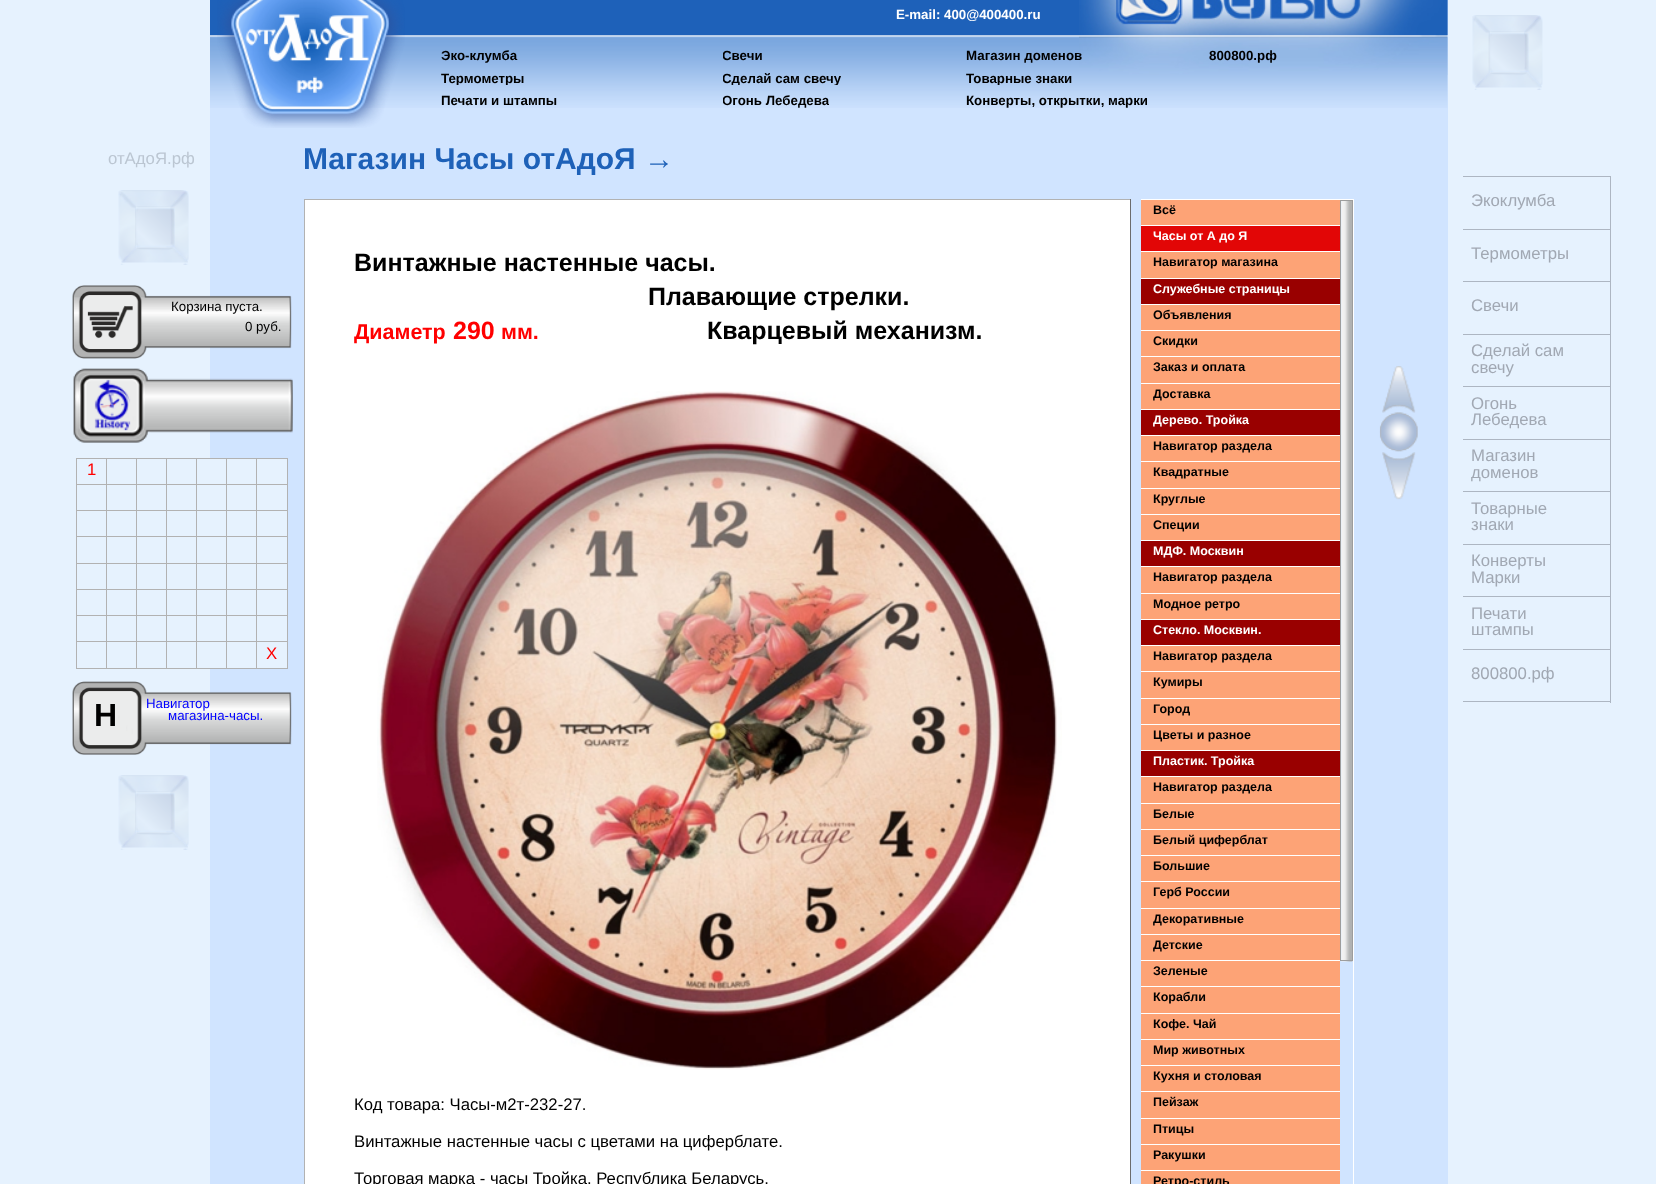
<svg xmlns="http://www.w3.org/2000/svg" width="1656" height="1184" viewBox="0 0 1656 1184">
  <defs>
    <clipPath id="clip1"><rect x="723" y="46" width="40" height="17"/></clipPath>
    <clipPath id="clip2"><rect x="441" y="69" width="83" height="16"/></clipPath>
    <clipPath id="clip3"><rect x="723" y="69" width="118" height="16"/></clipPath>
    <clipPath id="clip4"><rect x="966" y="69" width="107" height="16"/></clipPath>
    <clipPath id="clip5"><rect x="723" y="91" width="106" height="17"/></clipPath>
  </defs>
  <rect width="100%" height="100%" fill="rgb(230,242,254)"/>
  <rect x="210" y="0" width="1238" height="1184" fill="rgb(208,228,255)"/>
  <image x="210" y="0" width="1238" height="108" href="pic1.png"/>
  <image x="217" y="0" width="188" height="128" href="pic2.png"/>
  <text x="896" y="19" font-family="Liberation Sans" font-size="13.3" font-weight="bold" fill="rgb(255,255,255)">E-mail: 400@400400.ru</text>
  <image x="1079" y="0" width="369" height="75" href="pic3.png"/>
  <text x="441" y="60" font-family="Liberation Sans" font-size="13.3" font-weight="bold" fill="rgb(0,0,0)">Эко-клумба</text>
  <g clip-path="url(#clip1)">
    <text x="722" y="60" font-family="Liberation Sans" font-size="13.3" font-weight="bold" fill="rgb(0,0,0)">Свечи</text>
  </g>
  <g font-family="Liberation Sans" font-size="13.3" font-weight="bold" fill="rgb(0,0,0)">
    <text x="966" y="60">Магазин доменов</text>
    <text x="1209" y="60">800800.рф</text>
  </g>
  <g clip-path="url(#clip2)">
    <text x="441" y="83" font-family="Liberation Sans" font-size="13.3" font-weight="bold" fill="rgb(0,0,0)">Термометры</text>
  </g>
  <g clip-path="url(#clip3)">
    <text x="722" y="83" font-family="Liberation Sans" font-size="13.3" font-weight="bold" fill="rgb(0,0,0)">Сделай сам свечу</text>
  </g>
  <g clip-path="url(#clip4)">
    <text x="966" y="83" font-family="Liberation Sans" font-size="13.3" font-weight="bold" fill="rgb(0,0,0)">Товарные знаки</text>
  </g>
  <text x="441" y="105" font-family="Liberation Sans" font-size="13.3" font-weight="bold" fill="rgb(0,0,0)">Печати и штампы</text>
  <g clip-path="url(#clip5)">
    <text x="722" y="105" font-family="Liberation Sans" font-size="13.3" font-weight="bold" fill="rgb(0,0,0)">Огонь Лебедева</text>
  </g>
  <text x="966" y="105" font-family="Liberation Sans" font-size="13.3" font-weight="bold" fill="rgb(0,0,0)">Конверты, открытки, марки</text>
  <text x="303" y="169" font-family="Liberation Sans" font-size="30" font-weight="bold" fill="rgb(30,97,184)">Магазин Часы отАдоЯ →</text>
  <image x="72" y="285" width="220" height="74" href="pic4.png"/>
  <g font-family="Liberation Sans" font-size="13.3" fill="rgb(0,0,0)">
    <text x="171" y="311">Корзина пуста.</text>
    <text x="245" y="331">0 руб.</text>
  </g>
  <rect x="305" y="200" width="825" height="984" fill="rgb(255,255,255)"/>
  <rect x="304" y="199" width="827" height="1" fill="rgb(178,178,178)"/>
  <rect x="1130" y="199" width="1" height="985" fill="rgb(108,108,108)"/>
  <rect x="304" y="199" width="1" height="985" fill="rgb(178,178,178)"/>
  <g font-family="Liberation Sans" font-size="25" font-weight="bold" fill="rgb(0,0,0)">
    <text x="354" y="271">Винтажные настенные часы.</text>
    <text x="648" y="305">Плавающие стрелки.</text>
  </g>
  <text x="354" y="339" font-family="Liberation Sans" font-size="21.5" font-weight="bold" fill="rgb(255,0,0)">Диаметр</text>
  <text x="453" y="339" font-family="Liberation Sans" font-size="25" font-weight="bold" fill="rgb(255,0,0)">290</text>
  <text x="501" y="339" font-family="Liberation Sans" font-size="21.5" font-weight="bold" fill="rgb(255,0,0)">мм.</text>
  <text x="707" y="339" font-family="Liberation Sans" font-size="25" font-weight="bold" fill="rgb(0,0,0)">Кварцевый механизм.</text>
  <image x="377" y="391" width="685" height="679" href="pic5.png"/>
  <g font-family="Liberation Sans" font-size="16.7" fill="rgb(0,0,0)">
    <text x="354" y="1110">Код товара: Часы-м2т-232-27.</text>
    <text x="354" y="1147">Винтажные настенные часы с цветами на циферблате.</text>
    <text x="354" y="1184">Торговая марка - часы Тройка. Республика Беларусь.</text>
  </g>
  <rect x="1353" y="199" width="1" height="985" fill="rgb(255,255,255)"/>
  <rect x="1141" y="200" width="199" height="25" fill="rgb(253,163,118)"/>
  <rect x="1141" y="199" width="212" height="1" fill="rgb(255,255,255)"/>
  <text x="1153" y="214" font-family="Liberation Sans" font-size="12.5" font-weight="bold" fill="rgb(0,0,0)">Всё</text>
  <rect x="1141" y="226" width="199" height="25" fill="rgb(226,6,6)"/>
  <rect x="1141" y="225" width="199" height="1" fill="rgb(255,255,255)"/>
  <text x="1153" y="240" font-family="Liberation Sans" font-size="12.5" font-weight="bold" fill="rgb(255,255,255)">Часы от А до Я</text>
  <rect x="1141" y="252" width="199" height="26" fill="rgb(253,163,118)"/>
  <rect x="1141" y="251" width="199" height="1" fill="rgb(255,255,255)"/>
  <text x="1153" y="266" font-family="Liberation Sans" font-size="12.5" font-weight="bold" fill="rgb(0,0,0)">Навигатор магазина</text>
  <rect x="1141" y="279" width="199" height="25" fill="rgb(153,0,0)"/>
  <rect x="1141" y="278" width="199" height="1" fill="rgb(255,255,255)"/>
  <text x="1153" y="293" font-family="Liberation Sans" font-size="12.5" font-weight="bold" fill="rgb(255,255,255)">Служебные страницы</text>
  <rect x="1141" y="305" width="199" height="25" fill="rgb(253,163,118)"/>
  <rect x="1141" y="304" width="199" height="1" fill="rgb(255,255,255)"/>
  <text x="1153" y="319" font-family="Liberation Sans" font-size="12.5" font-weight="bold" fill="rgb(0,0,0)">Объявления</text>
  <rect x="1141" y="331" width="199" height="25" fill="rgb(253,163,118)"/>
  <rect x="1141" y="330" width="199" height="1" fill="rgb(255,255,255)"/>
  <text x="1153" y="345" font-family="Liberation Sans" font-size="12.5" font-weight="bold" fill="rgb(0,0,0)">Скидки</text>
  <rect x="1141" y="357" width="199" height="26" fill="rgb(253,163,118)"/>
  <rect x="1141" y="356" width="199" height="1" fill="rgb(255,255,255)"/>
  <text x="1153" y="371" font-family="Liberation Sans" font-size="12.5" font-weight="bold" fill="rgb(0,0,0)">Заказ и оплата</text>
  <rect x="1141" y="384" width="199" height="25" fill="rgb(253,163,118)"/>
  <rect x="1141" y="383" width="199" height="1" fill="rgb(255,255,255)"/>
  <text x="1153" y="398" font-family="Liberation Sans" font-size="12.5" font-weight="bold" fill="rgb(0,0,0)">Доставка</text>
  <rect x="1141" y="410" width="199" height="25" fill="rgb(153,0,0)"/>
  <rect x="1141" y="409" width="199" height="1" fill="rgb(255,255,255)"/>
  <text x="1153" y="424" font-family="Liberation Sans" font-size="12.5" font-weight="bold" fill="rgb(255,255,255)">Дерево. Тройка</text>
  <rect x="1141" y="436" width="199" height="25" fill="rgb(253,163,118)"/>
  <rect x="1141" y="435" width="199" height="1" fill="rgb(255,255,255)"/>
  <text x="1153" y="450" font-family="Liberation Sans" font-size="12.5" font-weight="bold" fill="rgb(0,0,0)">Навигатор раздела</text>
  <rect x="1141" y="462" width="199" height="26" fill="rgb(253,163,118)"/>
  <rect x="1141" y="461" width="199" height="1" fill="rgb(255,255,255)"/>
  <text x="1153" y="476" font-family="Liberation Sans" font-size="12.5" font-weight="bold" fill="rgb(0,0,0)">Квадратные</text>
  <rect x="1141" y="489" width="199" height="25" fill="rgb(253,163,118)"/>
  <rect x="1141" y="488" width="199" height="1" fill="rgb(255,255,255)"/>
  <text x="1153" y="503" font-family="Liberation Sans" font-size="12.5" font-weight="bold" fill="rgb(0,0,0)">Круглые</text>
  <rect x="1141" y="515" width="199" height="25" fill="rgb(253,163,118)"/>
  <rect x="1141" y="514" width="199" height="1" fill="rgb(255,255,255)"/>
  <text x="1153" y="529" font-family="Liberation Sans" font-size="12.5" font-weight="bold" fill="rgb(0,0,0)">Специи</text>
  <rect x="1141" y="541" width="199" height="25" fill="rgb(153,0,0)"/>
  <rect x="1141" y="540" width="199" height="1" fill="rgb(255,255,255)"/>
  <text x="1153" y="555" font-family="Liberation Sans" font-size="12.5" font-weight="bold" fill="rgb(255,255,255)">МДФ. Москвин</text>
  <rect x="1141" y="567" width="199" height="26" fill="rgb(253,163,118)"/>
  <rect x="1141" y="566" width="199" height="1" fill="rgb(255,255,255)"/>
  <text x="1153" y="581" font-family="Liberation Sans" font-size="12.5" font-weight="bold" fill="rgb(0,0,0)">Навигатор раздела</text>
  <rect x="1141" y="594" width="199" height="25" fill="rgb(253,163,118)"/>
  <rect x="1141" y="593" width="199" height="1" fill="rgb(255,255,255)"/>
  <text x="1153" y="608" font-family="Liberation Sans" font-size="12.5" font-weight="bold" fill="rgb(0,0,0)">Модное ретро</text>
  <rect x="1141" y="620" width="199" height="25" fill="rgb(153,0,0)"/>
  <rect x="1141" y="619" width="199" height="1" fill="rgb(255,255,255)"/>
  <text x="1153" y="634" font-family="Liberation Sans" font-size="12.5" font-weight="bold" fill="rgb(255,255,255)">Стекло. Москвин.</text>
  <rect x="1141" y="646" width="199" height="25" fill="rgb(253,163,118)"/>
  <rect x="1141" y="645" width="199" height="1" fill="rgb(255,255,255)"/>
  <text x="1153" y="660" font-family="Liberation Sans" font-size="12.5" font-weight="bold" fill="rgb(0,0,0)">Навигатор раздела</text>
  <rect x="1141" y="672" width="199" height="26" fill="rgb(253,163,118)"/>
  <rect x="1141" y="671" width="199" height="1" fill="rgb(255,255,255)"/>
  <text x="1153" y="686" font-family="Liberation Sans" font-size="12.5" font-weight="bold" fill="rgb(0,0,0)">Кумиры</text>
  <rect x="1141" y="699" width="199" height="25" fill="rgb(253,163,118)"/>
  <rect x="1141" y="698" width="199" height="1" fill="rgb(255,255,255)"/>
  <text x="1153" y="713" font-family="Liberation Sans" font-size="12.5" font-weight="bold" fill="rgb(0,0,0)">Город</text>
  <rect x="1141" y="725" width="199" height="25" fill="rgb(253,163,118)"/>
  <rect x="1141" y="724" width="199" height="1" fill="rgb(255,255,255)"/>
  <text x="1153" y="739" font-family="Liberation Sans" font-size="12.5" font-weight="bold" fill="rgb(0,0,0)">Цветы и разное</text>
  <rect x="1141" y="751" width="199" height="25" fill="rgb(153,0,0)"/>
  <rect x="1141" y="750" width="199" height="1" fill="rgb(255,255,255)"/>
  <text x="1153" y="765" font-family="Liberation Sans" font-size="12.5" font-weight="bold" fill="rgb(255,255,255)">Пластик. Тройка</text>
  <rect x="1141" y="777" width="199" height="26" fill="rgb(253,163,118)"/>
  <rect x="1141" y="776" width="199" height="1" fill="rgb(255,255,255)"/>
  <text x="1153" y="791" font-family="Liberation Sans" font-size="12.5" font-weight="bold" fill="rgb(0,0,0)">Навигатор раздела</text>
  <rect x="1141" y="804" width="199" height="25" fill="rgb(253,163,118)"/>
  <rect x="1141" y="803" width="199" height="1" fill="rgb(255,255,255)"/>
  <text x="1153" y="818" font-family="Liberation Sans" font-size="12.5" font-weight="bold" fill="rgb(0,0,0)">Белые</text>
  <rect x="1141" y="830" width="199" height="25" fill="rgb(253,163,118)"/>
  <rect x="1141" y="829" width="199" height="1" fill="rgb(255,255,255)"/>
  <text x="1153" y="844" font-family="Liberation Sans" font-size="12.5" font-weight="bold" fill="rgb(0,0,0)">Белый циферблат</text>
  <rect x="1141" y="856" width="199" height="25" fill="rgb(253,163,118)"/>
  <rect x="1141" y="855" width="199" height="1" fill="rgb(255,255,255)"/>
  <text x="1153" y="870" font-family="Liberation Sans" font-size="12.5" font-weight="bold" fill="rgb(0,0,0)">Большие</text>
  <rect x="1141" y="882" width="199" height="26" fill="rgb(253,163,118)"/>
  <rect x="1141" y="881" width="199" height="1" fill="rgb(255,255,255)"/>
  <text x="1153" y="896" font-family="Liberation Sans" font-size="12.5" font-weight="bold" fill="rgb(0,0,0)">Герб России</text>
  <rect x="1141" y="909" width="199" height="25" fill="rgb(253,163,118)"/>
  <rect x="1141" y="908" width="199" height="1" fill="rgb(255,255,255)"/>
  <text x="1153" y="923" font-family="Liberation Sans" font-size="12.5" font-weight="bold" fill="rgb(0,0,0)">Декоративные</text>
  <rect x="1141" y="935" width="199" height="25" fill="rgb(253,163,118)"/>
  <rect x="1141" y="934" width="199" height="1" fill="rgb(255,255,255)"/>
  <text x="1153" y="949" font-family="Liberation Sans" font-size="12.5" font-weight="bold" fill="rgb(0,0,0)">Детские</text>
  <rect x="1141" y="961" width="199" height="25" fill="rgb(253,163,118)"/>
  <rect x="1141" y="960" width="199" height="1" fill="rgb(255,255,255)"/>
  <text x="1153" y="975" font-family="Liberation Sans" font-size="12.5" font-weight="bold" fill="rgb(0,0,0)">Зеленые</text>
  <rect x="1141" y="987" width="199" height="26" fill="rgb(253,163,118)"/>
  <rect x="1141" y="986" width="199" height="1" fill="rgb(255,255,255)"/>
  <text x="1153" y="1001" font-family="Liberation Sans" font-size="12.5" font-weight="bold" fill="rgb(0,0,0)">Корабли</text>
  <rect x="1141" y="1014" width="199" height="25" fill="rgb(253,163,118)"/>
  <rect x="1141" y="1013" width="199" height="1" fill="rgb(255,255,255)"/>
  <text x="1153" y="1028" font-family="Liberation Sans" font-size="12.5" font-weight="bold" fill="rgb(0,0,0)">Кофе. Чай</text>
  <rect x="1141" y="1040" width="199" height="25" fill="rgb(253,163,118)"/>
  <rect x="1141" y="1039" width="199" height="1" fill="rgb(255,255,255)"/>
  <text x="1153" y="1054" font-family="Liberation Sans" font-size="12.5" font-weight="bold" fill="rgb(0,0,0)">Мир животных</text>
  <rect x="1141" y="1066" width="199" height="25" fill="rgb(253,163,118)"/>
  <rect x="1141" y="1065" width="199" height="1" fill="rgb(255,255,255)"/>
  <text x="1153" y="1080" font-family="Liberation Sans" font-size="12.5" font-weight="bold" fill="rgb(0,0,0)">Кухня и столовая</text>
  <rect x="1141" y="1092" width="199" height="26" fill="rgb(253,163,118)"/>
  <rect x="1141" y="1091" width="199" height="1" fill="rgb(255,255,255)"/>
  <text x="1153" y="1106" font-family="Liberation Sans" font-size="12.5" font-weight="bold" fill="rgb(0,0,0)">Пейзаж</text>
  <rect x="1141" y="1119" width="199" height="25" fill="rgb(253,163,118)"/>
  <rect x="1141" y="1118" width="199" height="1" fill="rgb(255,255,255)"/>
  <text x="1153" y="1133" font-family="Liberation Sans" font-size="12.5" font-weight="bold" fill="rgb(0,0,0)">Птицы</text>
  <rect x="1141" y="1145" width="199" height="25" fill="rgb(253,163,118)"/>
  <rect x="1141" y="1144" width="199" height="1" fill="rgb(255,255,255)"/>
  <text x="1153" y="1159" font-family="Liberation Sans" font-size="12.5" font-weight="bold" fill="rgb(0,0,0)">Ракушки</text>
  <rect x="1141" y="1171" width="199" height="13" fill="rgb(253,163,118)"/>
  <rect x="1141" y="1170" width="199" height="1" fill="rgb(255,255,255)"/>
  <text x="1153" y="1185" font-family="Liberation Sans" font-size="12.5" font-weight="bold" fill="rgb(0,0,0)">Ретро-стиль</text>
  <image x="1341" y="201" width="12" height="761" href="pic6.png"/>
  <rect x="1340.5" y="200.5" width="12" height="760" fill="none" stroke="rgb(157,157,157)"/>
  <image x="1382" y="366" width="34" height="47" href="pic7.png"/>
  <image x="1379" y="412" width="39" height="40" href="pic8.png"/>
  <image x="1382" y="452" width="34" height="48" href="pic9.png"/>
  <image x="1382" y="366" width="33" height="47" href="pic10.png"/>
  <image x="1380" y="412" width="38" height="40" href="pic11.png"/>
  <image x="1382" y="452" width="33" height="47" href="pic12.png"/>
  <image x="72" y="681" width="220" height="74" href="pic13.png"/>
  <text x="94" y="726" font-family="Liberation Sans" font-size="32" font-weight="bold" fill="rgb(0,0,0)">Н</text>
  <g font-family="Liberation Sans" font-size="13.3" fill="rgb(0,0,255)">
    <text x="146" y="708">Навигатор</text>
    <text x="168" y="720">магазина-часы.</text>
  </g>
  <text x="108" y="164" font-family="Liberation Sans" font-size="16.75" fill="rgb(187,198,210)">отАдоЯ.рф</text>
  <image x="118" y="190" width="70" height="18" href="pic14.png"/>
  <image x="121" y="246" width="67" height="17" href="pic18.png"/>
  <image x="118" y="192" width="18" height="73" href="pic15.png"/>
  <image x="170" y="190" width="19" height="75" href="pic17.png"/>
  <image x="135" y="208" width="40" height="39" href="pic16.png"/>
  <image x="73" y="368" width="220" height="75" href="pic19.png"/>
  <image x="73" y="368" width="220" height="75" href="pic20.png"/>
  <rect x="76.5" y="458.5" width="31" height="26" fill="none" stroke="rgb(178,178,178)"/>
  <text x="87" y="475" font-family="Liberation Sans" font-size="16.75" fill="rgb(255,0,0)">1</text>
  <rect x="107" y="459" width="1" height="25" fill="rgb(230,242,254)"/>
  <rect x="106.5" y="458.5" width="31" height="26" fill="none" stroke="rgb(178,178,178)"/>
  <rect x="137" y="459" width="1" height="25" fill="rgb(230,242,254)"/>
  <rect x="136.5" y="458.5" width="31" height="26" fill="none" stroke="rgb(178,178,178)"/>
  <rect x="167" y="459" width="1" height="25" fill="rgb(230,242,254)"/>
  <rect x="166.5" y="458.5" width="31" height="26" fill="none" stroke="rgb(178,178,178)"/>
  <rect x="197" y="459" width="29" height="25" fill="rgb(230,242,254)"/>
  <rect x="196.5" y="458.5" width="31" height="26" fill="none" stroke="rgb(178,178,178)"/>
  <rect x="227" y="459" width="29" height="25" fill="rgb(230,242,254)"/>
  <rect x="226.5" y="458.5" width="31" height="26" fill="none" stroke="rgb(178,178,178)"/>
  <rect x="256.5" y="458.5" width="31" height="26" fill="rgb(230,242,254)" stroke="rgb(178,178,178)"/>
  <rect x="76.5" y="484.5" width="31" height="26" fill="none" stroke="rgb(178,178,178)"/>
  <rect x="107" y="485" width="1" height="25" fill="rgb(230,242,254)"/>
  <rect x="106.5" y="484.5" width="31" height="26" fill="none" stroke="rgb(178,178,178)"/>
  <rect x="137" y="485" width="1" height="25" fill="rgb(230,242,254)"/>
  <rect x="136.5" y="484.5" width="31" height="26" fill="none" stroke="rgb(178,178,178)"/>
  <rect x="167" y="485" width="1" height="25" fill="rgb(230,242,254)"/>
  <rect x="166.5" y="484.5" width="31" height="26" fill="none" stroke="rgb(178,178,178)"/>
  <rect x="197" y="485" width="29" height="25" fill="rgb(230,242,254)"/>
  <rect x="196.5" y="484.5" width="31" height="26" fill="none" stroke="rgb(178,178,178)"/>
  <rect x="227" y="485" width="29" height="25" fill="rgb(230,242,254)"/>
  <rect x="226.5" y="484.5" width="31" height="26" fill="none" stroke="rgb(178,178,178)"/>
  <rect x="256.5" y="484.5" width="31" height="26" fill="rgb(230,242,254)" stroke="rgb(178,178,178)"/>
  <rect x="76.5" y="510.5" width="31" height="27" fill="none" stroke="rgb(178,178,178)"/>
  <rect x="107" y="511" width="1" height="25" fill="rgb(230,242,254)"/>
  <rect x="106.5" y="510.5" width="31" height="27" fill="none" stroke="rgb(178,178,178)"/>
  <rect x="137" y="511" width="1" height="25" fill="rgb(230,242,254)"/>
  <rect x="136.5" y="510.5" width="31" height="27" fill="none" stroke="rgb(178,178,178)"/>
  <rect x="167" y="511" width="1" height="25" fill="rgb(230,242,254)"/>
  <rect x="166.5" y="510.5" width="31" height="27" fill="none" stroke="rgb(178,178,178)"/>
  <rect x="197" y="511" width="29" height="25" fill="rgb(230,242,254)"/>
  <rect x="196.5" y="510.5" width="31" height="27" fill="none" stroke="rgb(178,178,178)"/>
  <rect x="227" y="511" width="29" height="25" fill="rgb(230,242,254)"/>
  <rect x="226.5" y="510.5" width="31" height="27" fill="none" stroke="rgb(178,178,178)"/>
  <rect x="257" y="511" width="30" height="25" fill="rgb(230,242,254)"/>
  <rect x="256.5" y="510.5" width="31" height="27" fill="none" stroke="rgb(178,178,178)"/>
  <rect x="77" y="537" width="29" height="1" fill="rgb(230,242,254)"/>
  <rect x="76.5" y="536.5" width="31" height="27" fill="none" stroke="rgb(178,178,178)"/>
  <rect x="107" y="537" width="29" height="26" fill="rgb(230,242,254)"/>
  <rect x="106.5" y="536.5" width="31" height="27" fill="none" stroke="rgb(178,178,178)"/>
  <rect x="137" y="537" width="29" height="26" fill="rgb(230,242,254)"/>
  <rect x="136.5" y="536.5" width="31" height="27" fill="none" stroke="rgb(178,178,178)"/>
  <rect x="167" y="537" width="29" height="26" fill="rgb(230,242,254)"/>
  <rect x="166.5" y="536.5" width="31" height="27" fill="none" stroke="rgb(178,178,178)"/>
  <rect x="197" y="537" width="29" height="26" fill="rgb(230,242,254)"/>
  <rect x="196.5" y="536.5" width="31" height="27" fill="none" stroke="rgb(178,178,178)"/>
  <rect x="227" y="537" width="29" height="26" fill="rgb(230,242,254)"/>
  <rect x="226.5" y="536.5" width="31" height="27" fill="none" stroke="rgb(178,178,178)"/>
  <rect x="256.5" y="536.5" width="31" height="27" fill="rgb(230,242,254)" stroke="rgb(178,178,178)"/>
  <rect x="76.5" y="563.5" width="31" height="26" fill="none" stroke="rgb(178,178,178)"/>
  <rect x="107" y="564" width="1" height="25" fill="rgb(230,242,254)"/>
  <rect x="106.5" y="563.5" width="31" height="26" fill="none" stroke="rgb(178,178,178)"/>
  <rect x="137" y="564" width="1" height="25" fill="rgb(230,242,254)"/>
  <rect x="136.5" y="563.5" width="31" height="26" fill="none" stroke="rgb(178,178,178)"/>
  <rect x="167" y="564" width="1" height="25" fill="rgb(230,242,254)"/>
  <rect x="166.5" y="563.5" width="31" height="26" fill="none" stroke="rgb(178,178,178)"/>
  <rect x="197" y="564" width="29" height="25" fill="rgb(230,242,254)"/>
  <rect x="196.5" y="563.5" width="31" height="26" fill="none" stroke="rgb(178,178,178)"/>
  <rect x="227" y="564" width="29" height="25" fill="rgb(230,242,254)"/>
  <rect x="226.5" y="563.5" width="31" height="26" fill="none" stroke="rgb(178,178,178)"/>
  <rect x="256.5" y="563.5" width="31" height="26" fill="rgb(230,242,254)" stroke="rgb(178,178,178)"/>
  <rect x="76.5" y="589.5" width="31" height="26" fill="none" stroke="rgb(178,178,178)"/>
  <rect x="107" y="590" width="1" height="25" fill="rgb(230,242,254)"/>
  <rect x="106.5" y="589.5" width="31" height="26" fill="none" stroke="rgb(178,178,178)"/>
  <rect x="137" y="590" width="1" height="25" fill="rgb(230,242,254)"/>
  <rect x="136.5" y="589.5" width="31" height="26" fill="none" stroke="rgb(178,178,178)"/>
  <rect x="167" y="590" width="1" height="25" fill="rgb(230,242,254)"/>
  <rect x="166.5" y="589.5" width="31" height="26" fill="none" stroke="rgb(178,178,178)"/>
  <rect x="197" y="590" width="29" height="25" fill="rgb(230,242,254)"/>
  <rect x="196.5" y="589.5" width="31" height="26" fill="none" stroke="rgb(178,178,178)"/>
  <rect x="227" y="590" width="29" height="25" fill="rgb(230,242,254)"/>
  <rect x="226.5" y="589.5" width="31" height="26" fill="none" stroke="rgb(178,178,178)"/>
  <rect x="256.5" y="589.5" width="31" height="26" fill="rgb(230,242,254)" stroke="rgb(178,178,178)"/>
  <rect x="76.5" y="615.5" width="31" height="27" fill="none" stroke="rgb(178,178,178)"/>
  <rect x="107" y="616" width="1" height="25" fill="rgb(230,242,254)"/>
  <rect x="106.5" y="615.5" width="31" height="27" fill="none" stroke="rgb(178,178,178)"/>
  <rect x="137" y="616" width="1" height="25" fill="rgb(230,242,254)"/>
  <rect x="136.5" y="615.5" width="31" height="27" fill="none" stroke="rgb(178,178,178)"/>
  <rect x="167" y="616" width="1" height="25" fill="rgb(230,242,254)"/>
  <rect x="166.5" y="615.5" width="31" height="27" fill="none" stroke="rgb(178,178,178)"/>
  <rect x="197" y="616" width="29" height="25" fill="rgb(230,242,254)"/>
  <rect x="196.5" y="615.5" width="31" height="27" fill="none" stroke="rgb(178,178,178)"/>
  <rect x="227" y="616" width="29" height="25" fill="rgb(230,242,254)"/>
  <rect x="226.5" y="615.5" width="31" height="27" fill="none" stroke="rgb(178,178,178)"/>
  <rect x="257" y="616" width="30" height="25" fill="rgb(230,242,254)"/>
  <rect x="256.5" y="615.5" width="31" height="27" fill="none" stroke="rgb(178,178,178)"/>
  <rect x="77" y="642" width="29" height="1" fill="rgb(230,242,254)"/>
  <rect x="76.5" y="641.5" width="31" height="27" fill="none" stroke="rgb(178,178,178)"/>
  <rect x="107" y="642" width="29" height="26" fill="rgb(230,242,254)"/>
  <rect x="106.5" y="641.5" width="31" height="27" fill="none" stroke="rgb(178,178,178)"/>
  <rect x="137" y="642" width="29" height="26" fill="rgb(230,242,254)"/>
  <rect x="136.5" y="641.5" width="31" height="27" fill="none" stroke="rgb(178,178,178)"/>
  <rect x="167" y="642" width="29" height="26" fill="rgb(230,242,254)"/>
  <rect x="166.5" y="641.5" width="31" height="27" fill="none" stroke="rgb(178,178,178)"/>
  <rect x="197" y="642" width="29" height="26" fill="rgb(230,242,254)"/>
  <rect x="196.5" y="641.5" width="31" height="27" fill="none" stroke="rgb(178,178,178)"/>
  <rect x="227" y="642" width="29" height="26" fill="rgb(230,242,254)"/>
  <rect x="226.5" y="641.5" width="31" height="27" fill="none" stroke="rgb(178,178,178)"/>
  <rect x="256.5" y="641.5" width="31" height="27" fill="rgb(230,242,254)" stroke="rgb(178,178,178)"/>
  <text x="266" y="659" font-family="Liberation Sans" font-size="16.75" fill="rgb(255,0,0)">X</text>
  <image x="118" y="775" width="70" height="18" href="pic14.png"/>
  <image x="121" y="831" width="67" height="17" href="pic18.png"/>
  <image x="118" y="777" width="18" height="73" href="pic15.png"/>
  <image x="170" y="775" width="19" height="75" href="pic17.png"/>
  <image x="135" y="793" width="40" height="39" href="pic16.png"/>
  <image x="1472" y="15" width="69" height="18" href="pic21.png"/>
  <image x="1475" y="71" width="67" height="17" href="pic25.png"/>
  <image x="1472" y="16" width="18" height="74" href="pic22.png"/>
  <image x="1524" y="15" width="19" height="75" href="pic24.png"/>
  <image x="1488" y="33" width="41" height="39" href="pic23.png"/>
  <rect x="1463" y="176" width="148" height="1" fill="rgb(173,182,194)"/>
  <rect x="1610" y="176" width="1" height="54" fill="rgb(173,182,194)"/>
  <rect x="1463" y="229" width="148" height="1" fill="rgb(173,182,194)"/>
  <text x="1471" y="206" font-family="Liberation Sans" font-size="16.75" fill="rgb(161,168,179)">Экоклумба</text>
  <rect x="1610" y="229" width="1" height="54" fill="rgb(173,182,194)"/>
  <rect x="1463" y="281" width="148" height="1" fill="rgb(173,182,194)"/>
  <text x="1471" y="259" font-family="Liberation Sans" font-size="16.75" fill="rgb(161,168,179)">Термометры</text>
  <rect x="1610" y="281" width="1" height="54" fill="rgb(173,182,194)"/>
  <rect x="1463" y="334" width="148" height="1" fill="rgb(173,182,194)"/>
  <text x="1471" y="311" font-family="Liberation Sans" font-size="16.75" fill="rgb(161,168,179)">Свечи</text>
  <rect x="1610" y="334" width="1" height="54" fill="rgb(173,182,194)"/>
  <rect x="1463" y="386" width="148" height="1" fill="rgb(173,182,194)"/>
  <g font-family="Liberation Sans" font-size="16.75" fill="rgb(161,168,179)">
    <text>
      <tspan x="1471" y="356">Сделай сам</tspan>
      <tspan x="1471" y="373">свечу</tspan>
    </text>
  </g>
  <rect x="1610" y="386" width="1" height="54" fill="rgb(173,182,194)"/>
  <rect x="1463" y="439" width="148" height="1" fill="rgb(173,182,194)"/>
  <g font-family="Liberation Sans" font-size="16.75" fill="rgb(161,168,179)">
    <text>
      <tspan x="1471" y="409">Огонь</tspan>
      <tspan x="1471" y="425">Лебедева</tspan>
    </text>
  </g>
  <rect x="1610" y="439" width="1" height="54" fill="rgb(173,182,194)"/>
  <rect x="1463" y="491" width="148" height="1" fill="rgb(173,182,194)"/>
  <g font-family="Liberation Sans" font-size="16.75" fill="rgb(161,168,179)">
    <text>
      <tspan x="1471" y="461">Магазин</tspan>
      <tspan x="1471" y="478">доменов</tspan>
    </text>
  </g>
  <rect x="1610" y="491" width="1" height="54" fill="rgb(173,182,194)"/>
  <rect x="1463" y="544" width="148" height="1" fill="rgb(173,182,194)"/>
  <g font-family="Liberation Sans" font-size="16.75" fill="rgb(161,168,179)">
    <text>
      <tspan x="1471" y="514">Товарные</tspan>
      <tspan x="1471" y="530">знаки</tspan>
    </text>
  </g>
  <rect x="1610" y="544" width="1" height="54" fill="rgb(173,182,194)"/>
  <rect x="1463" y="596" width="148" height="1" fill="rgb(173,182,194)"/>
  <g font-family="Liberation Sans" font-size="16.75" fill="rgb(161,168,179)">
    <text>
      <tspan x="1471" y="566">Конверты</tspan>
      <tspan x="1471" y="583">Марки</tspan>
    </text>
  </g>
  <rect x="1610" y="596" width="1" height="54" fill="rgb(173,182,194)"/>
  <rect x="1463" y="649" width="148" height="1" fill="rgb(173,182,194)"/>
  <g font-family="Liberation Sans" font-size="16.75" fill="rgb(161,168,179)">
    <text>
      <tspan x="1471" y="619">Печати</tspan>
      <tspan x="1471" y="635">штампы</tspan>
    </text>
  </g>
  <rect x="1610" y="649" width="1" height="54" fill="rgb(173,182,194)"/>
  <rect x="1463" y="701" width="148" height="1" fill="rgb(173,182,194)"/>
  <text x="1471" y="679" font-family="Liberation Sans" font-size="16.75" fill="rgb(161,168,179)">800800.рф</text>
</svg>
